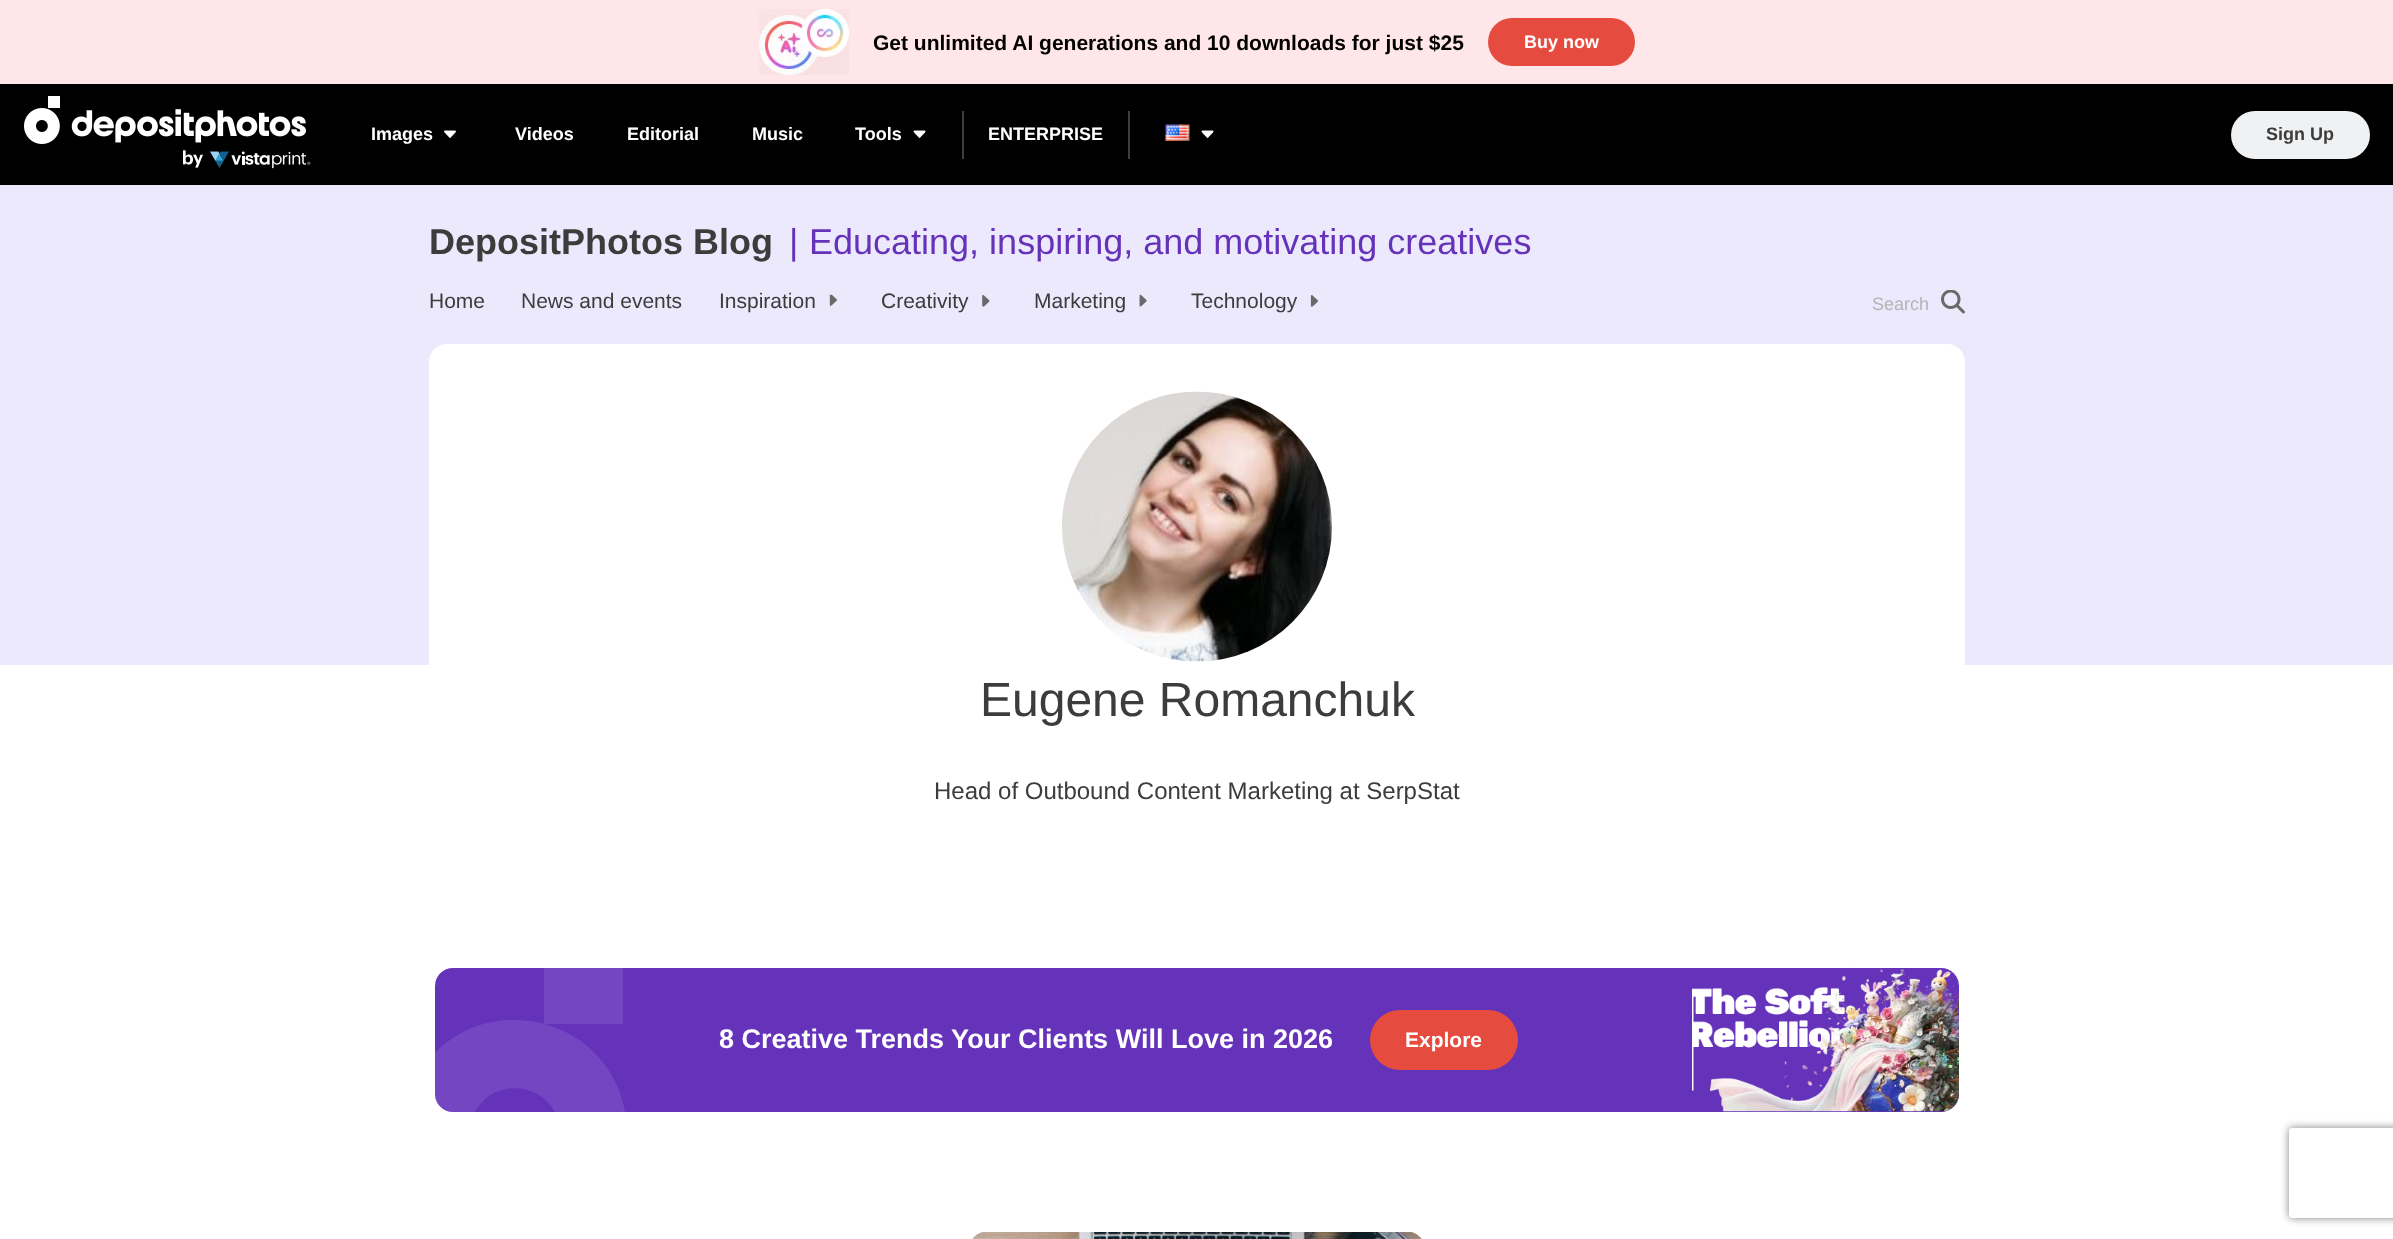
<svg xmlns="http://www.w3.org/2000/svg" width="2393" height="1239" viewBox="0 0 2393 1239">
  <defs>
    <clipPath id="clip1"><path d="M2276 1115H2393V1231H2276ZM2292 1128H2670C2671.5 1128 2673 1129.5 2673 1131V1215C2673 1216.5 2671.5 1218 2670 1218H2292C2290.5 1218 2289 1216.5 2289 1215V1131C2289 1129.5 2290.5 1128 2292 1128Z" clip-rule="evenodd"/></clipPath>
  </defs>
  <rect width="100%" height="100%" fill="rgb(255,255,255)"/>
  <rect x="0" y="0" width="2393" height="84" fill="rgb(255,230,232)"/>
  <image x="759" y="9" width="90" height="66" href="pic1.png"/>
  <text x="873" y="50" font-family="Liberation Sans" font-size="21" font-weight="bold" fill="rgb(0,0,0)">Get unlimited AI generations and 10 downloads for just $25</text>
  <rect x="1488" y="18" width="147" height="48" rx="24" fill="rgb(229,76,63)"/>
  <text x="1524" y="48" font-family="Liberation Sans" font-size="18" font-weight="bold" fill="rgb(255,255,255)">Buy now</text>
  <rect x="0" y="84" width="2393" height="101" fill="rgb(0,0,0)"/>
  <image x="24" y="96" width="287" height="73" href="pic2.png"/>
  <text x="371" y="140" font-family="Liberation Sans" font-size="18" font-weight="bold" fill="rgb(255,255,255)">Images</text>
  <image x="444" y="130" width="12" height="8" href="pic3.png"/>
  <g font-family="Liberation Sans" font-size="18" font-weight="bold" fill="rgb(255,255,255)">
    <text x="515" y="140">Videos</text>
    <text x="627" y="140">Editorial</text>
    <text x="752" y="140">Music</text>
    <text x="855" y="140">Tools</text>
  </g>
  <image x="913" y="130" width="13" height="8" href="pic4.png"/>
  <rect x="1128" y="111" width="2" height="48" fill="rgb(61,61,61)"/>
  <rect x="962" y="111" width="2" height="48" fill="rgb(61,61,61)"/>
  <text x="988" y="140" font-family="Liberation Sans" font-size="18" font-weight="bold" fill="rgb(255,255,255)">ENTERPRISE</text>
  <image x="1165" y="124" width="25" height="17" href="pic5.png"/>
  <image x="1201" y="130" width="13" height="8" href="pic4.png"/>
  <rect x="2231" y="111" width="139" height="48" rx="24" fill="rgb(240,241,243)"/>
  <text x="2266" y="140" font-family="Liberation Sans" font-size="18" font-weight="bold" fill="rgb(60,60,60)">Sign Up</text>
  <rect x="0" y="185" width="2393" height="480" fill="rgb(237,233,252)"/>
  <text x="429" y="254" font-family="Liberation Sans" font-size="36" font-weight="bold" fill="rgb(60,60,60)">DepositPhotos Blog</text>
  <g font-family="Liberation Sans" font-size="36" fill="rgb(101,50,186)">
    <text x="789" y="254">|</text>
    <text x="809" y="254">Educating, inspiring, and motivating creatives</text>
  </g>
  <g font-family="Liberation Sans" font-size="21" fill="rgb(60,60,60)">
    <text x="429" y="308">Home</text>
    <text x="521" y="308">News and events</text>
    <text x="719" y="308">Inspiration</text>
  </g>
  <image x="829" y="294" width="8" height="12" href="pic6.png"/>
  <text x="881" y="308" font-family="Liberation Sans" font-size="21" fill="rgb(60,60,60)">Creativity</text>
  <image x="982" y="295" width="8" height="12" href="pic7.png"/>
  <text x="1034" y="308" font-family="Liberation Sans" font-size="21" fill="rgb(60,60,60)">Marketing</text>
  <image x="1139" y="294" width="8" height="13" href="pic8.png"/>
  <text x="1191" y="308" font-family="Liberation Sans" font-size="21" fill="rgb(60,60,60)">Technology</text>
  <image x="1310" y="295" width="8" height="12" href="pic9.png"/>
  <text x="1872" y="310" font-family="Liberation Sans" font-size="18" fill="rgb(180,180,180)">Search</text>
  <image x="1941" y="290" width="24" height="24" href="pic10.png"/>
  <rect x="429" y="344" width="1536" height="522" rx="18" fill="rgb(255,255,255)"/>
  <image x="1062" y="391" width="270" height="271" href="pic11.png"/>
  <text x="980" y="716" font-family="Liberation Sans" font-size="48" fill="rgb(60,60,60)">Eugene Romanchuk</text>
  <text x="934" y="799" font-family="Liberation Sans" font-size="24" fill="rgb(60,60,60)">Head of Outbound Content Marketing at SerpStat</text>
  <rect x="435" y="968" width="1524" height="144" rx="18" fill="rgb(101,50,186)"/>
  <path d="M514 1020C483 1020 455 1032 435 1053V1094C435 1104 443 1112 453 1112H475C492 1080 538 1081 555 1112H625C618 1069 586 1035 544 1024H623V968H544V1024C534 1021 524 1020 514 1020Z" fill="rgba(255,255,255,0.1)"/>
  <text x="719" y="1048" font-family="Liberation Sans" font-size="27" font-weight="bold" fill="rgb(255,255,255)">8 Creative Trends Your Clients Will Love in 2026</text>
  <rect x="1370" y="1010" width="148" height="60" rx="30" fill="rgb(229,76,63)"/>
  <text x="1405" y="1047" font-family="Liberation Sans" font-size="21" font-weight="bold" fill="rgb(255,255,255)">Explore</text>
  <image x="1692" y="967" width="267" height="145" href="pic12.png"/>
  <image x="972" y="1232" width="450" height="7" href="pic13.png"/>
  <g clip-path="url(#clip1)">
    <rect x="2289" y="1128" width="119" height="90" rx="3" fill="rgb(128,128,128)" filter="blur(4px)"/>
  </g>
</svg>
